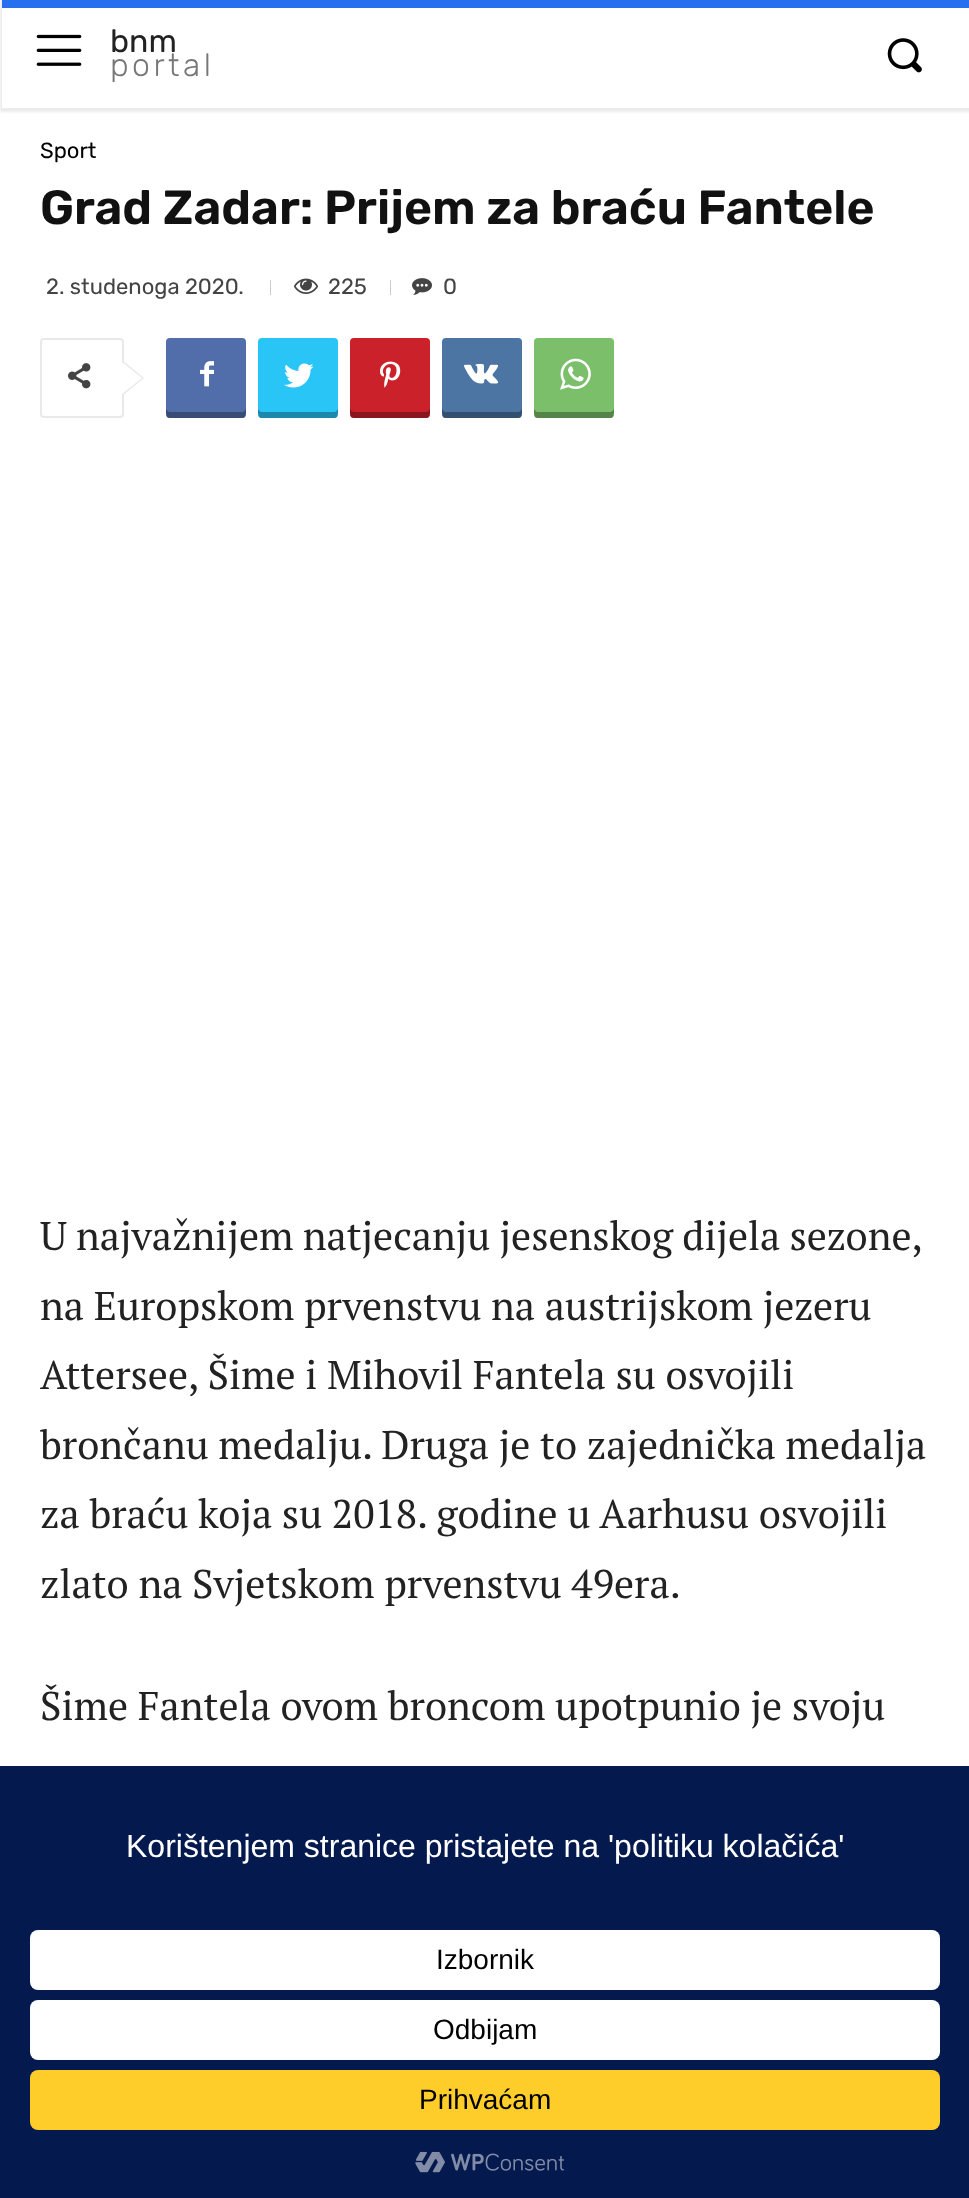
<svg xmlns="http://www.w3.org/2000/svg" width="969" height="2198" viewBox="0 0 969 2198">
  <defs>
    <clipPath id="clip1"><path d="M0 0H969V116H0ZM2 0H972V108H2Z" clip-rule="evenodd"/></clipPath>
    <clipPath id="clip2"><rect x="166" y="338" width="80" height="80"/></clipPath>
    <clipPath id="clip3"><rect x="258" y="338" width="80" height="80"/></clipPath>
    <clipPath id="clip4"><rect x="350" y="338" width="80" height="80"/></clipPath>
    <clipPath id="clip5"><rect x="442" y="338" width="80" height="80"/></clipPath>
    <clipPath id="clip6"><rect x="534" y="338" width="80" height="80"/></clipPath>
  </defs>
  <rect width="100%" height="100%" fill="rgb(255,255,255)"/>
  <rect x="2" y="0" width="967" height="8" fill="rgb(38,111,239)"/>
  <image x="36" y="34" width="46" height="32" href="pic1.png"/>
  <image x="887" y="38" width="35" height="35" href="pic2.png"/>
  <g clip-path="url(#clip1)">
    <rect x="0" y="0" width="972" height="112" fill="rgba(0,0,0,0.08)" filter="blur(1px)"/>
  </g>
  <text x="110" y="52" font-family="Rubik" font-size="32" fill="rgb(34,34,34)">bnm</text>
  <text x="110" y="76" font-family="Rubik" font-size="32" font-weight="300" letter-spacing="3.5" fill="rgb(119,119,119)">portal</text>
  <text x="40" y="158" font-family="Rubik" font-size="22" fill="rgb(0,0,0)">Sport</text>
  <text x="40" y="224" font-family="Rubik" font-size="48" font-weight="600" fill="rgb(17,17,17)">Grad Zadar: Prijem za braću Fantele</text>
  <text x="46" y="294" font-family="Rubik" font-size="22" fill="rgb(68,68,68)">2. studenoga 2020.</text>
  <rect x="270" y="280" width="1" height="15" fill="rgb(204,204,204)"/>
  <image x="294" y="278" width="24" height="16" href="pic3.png"/>
  <text x="328" y="294" font-family="Rubik" font-size="22" fill="rgb(68,68,68)">225</text>
  <rect x="390" y="280" width="1" height="15" fill="rgb(204,204,204)"/>
  <image x="412" y="278" width="20" height="17" href="pic4.png"/>
  <text x="443" y="294" font-family="Rubik" font-size="22" fill="rgb(68,68,68)">0</text>
  <rect x="41" y="339" width="82" height="78" rx="3" fill="none" stroke="rgb(233,233,233)" stroke-width="2"/>
  <path d="M122 396V360L144 378Z" fill="rgb(233,233,233)"/>
  <image x="68" y="363" width="23" height="26" href="pic5.png"/>
  <path d="M122 394V362L142 378Z" fill="rgb(255,255,255)"/>
  <rect x="166" y="338" width="80" height="80" rx="4" fill="rgb(81,110,171)"/>
  <g clip-path="url(#clip2)">
    <path d="M166 408C166 421 167 418 182 418H230C245 418 246 421 246 408C246 410 244 412 242 412H170C168 412 166 410 166 408Z" fill="rgba(0,0,0,0.31)"/>
  </g>
  <image x="200" y="361" width="14" height="26" href="pic6.png"/>
  <rect x="258" y="338" width="80" height="80" rx="4" fill="rgb(41,197,246)"/>
  <g clip-path="url(#clip3)">
    <path d="M258 408C258 421 259 418 274 418H322C337 418 338 421 338 408C338 410 336 412 334 412H262C260 412 258 410 258 408Z" fill="rgba(0,0,0,0.31)"/>
  </g>
  <image x="284" y="363" width="30" height="25" href="pic7.png"/>
  <rect x="350" y="338" width="80" height="80" rx="4" fill="rgb(202,33,42)"/>
  <g clip-path="url(#clip4)">
    <path d="M350 408C350 421 351 418 366 418H414C429 418 430 421 430 408C430 410 428 412 426 412H354C352 412 350 410 350 408Z" fill="rgba(0,0,0,0.31)"/>
  </g>
  <image x="380" y="361" width="21" height="27" href="pic8.png"/>
  <rect x="442" y="338" width="80" height="80" rx="4" fill="rgb(76,117,163)"/>
  <g clip-path="url(#clip5)">
    <path d="M442 408C442 421 443 418 458 418H506C521 418 522 421 522 408C522 410 520 412 518 412H446C444 412 442 410 442 408Z" fill="rgba(0,0,0,0.31)"/>
  </g>
  <image x="464" y="363" width="35" height="21" href="pic9.png"/>
  <rect x="534" y="338" width="80" height="80" rx="4" fill="rgb(123,191,106)"/>
  <g clip-path="url(#clip6)">
    <path d="M534 408C534 421 535 418 550 418H598C613 418 614 421 614 408C614 410 612 412 610 412H538C536 412 534 410 534 408Z" fill="rgba(0,0,0,0.31)"/>
  </g>
  <image x="560" y="358" width="31" height="32" href="pic10.png"/>
  <g font-family="PT Serif" font-size="40" fill="rgb(34,34,34)">
    <text>
      <tspan x="40" y="1250" word-spacing="-0.5">U najvažnijem natjecanju jesenskog dijela sezone,</tspan>
      <tspan x="40" y="1320">na Europskom prvenstvu na austrijskom jezeru</tspan>
      <tspan x="40" y="1389">Attersee, Šime i Mihovil Fantela su osvojili</tspan>
      <tspan x="40" y="1459">brončanu medalju. Druga je to zajednička medalja</tspan>
      <tspan x="40" y="1528">za braću koja su 2018. godine u Aarhusu osvojili</tspan>
      <tspan x="40" y="1598">zlato na Svjetskom prvenstvu 49era.</tspan>
    </text>
    <text x="40" y="1720">Šime Fantela ovom broncom upotpunio je svoju</text>
  </g>
  <rect x="0" y="1766" width="969" height="432" fill="rgb(4,25,78)"/>
  <text x="126" y="1857" font-family="Liberation Sans" font-size="32" fill="rgb(255,255,255)">Korištenjem stranice pristajete na 'politiku kolačića'</text>
  <rect x="30" y="1930" width="910" height="60" rx="8" fill="rgb(255,255,255)"/>
  <text x="436" y="1969" font-family="Liberation Sans" font-size="28" fill="rgb(0,0,0)">Izbornik</text>
  <rect x="30" y="2000" width="910" height="60" rx="8" fill="rgb(255,255,255)"/>
  <text x="433" y="2039" font-family="Liberation Sans" font-size="28" fill="rgb(0,0,0)">Odbijam</text>
  <rect x="30" y="2070" width="910" height="60" rx="8" fill="rgb(255,205,42)"/>
  <text x="419" y="2109" font-family="Liberation Sans" font-size="28" fill="rgb(0,0,0)">Prihvaćam</text>
  <image x="415" y="2151" width="149" height="22" href="pic11.png"/>
</svg>
